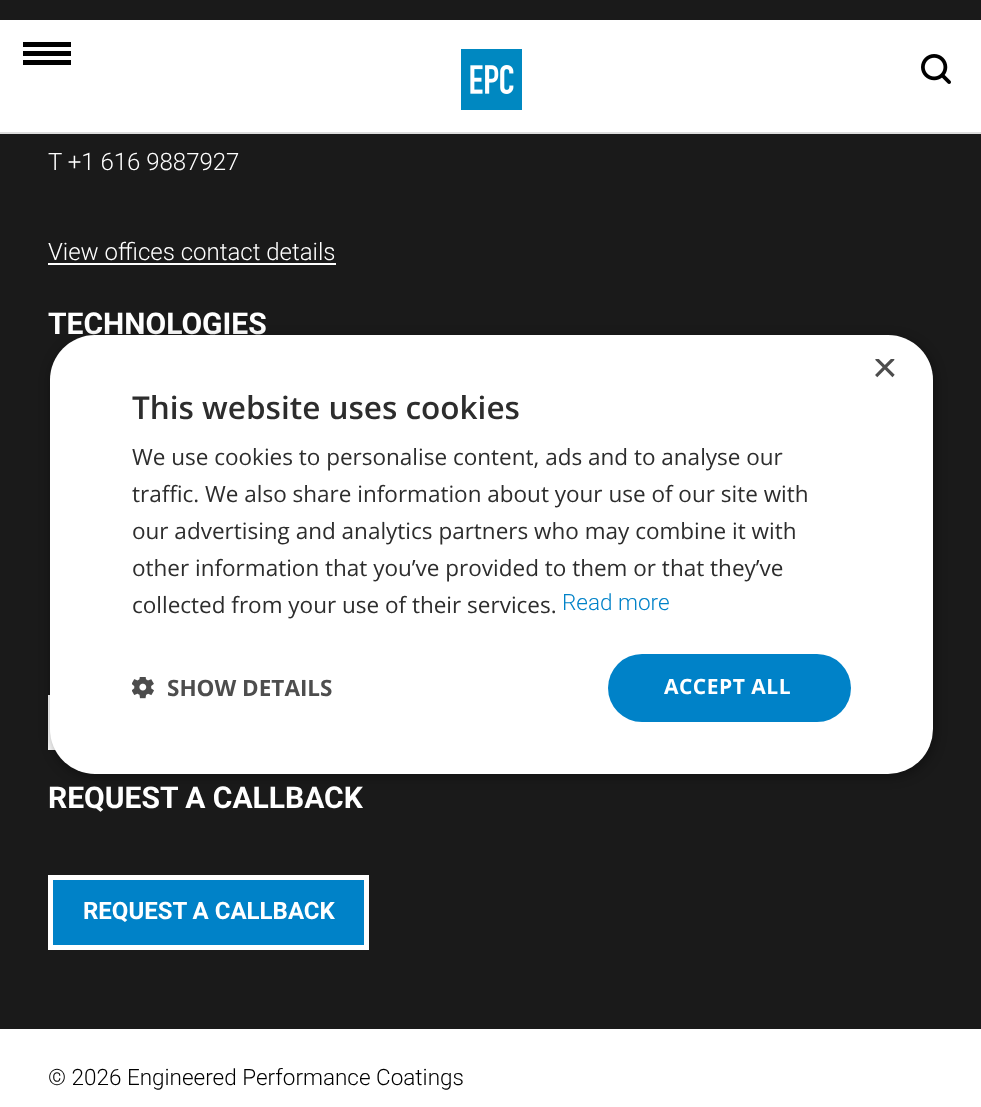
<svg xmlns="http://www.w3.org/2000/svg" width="981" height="1107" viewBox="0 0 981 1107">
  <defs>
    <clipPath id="clip1"><rect x="873" y="359" width="23" height="22"/></clipPath>
  </defs>
  <rect width="100%" height="100%" fill="rgb(26,26,26)"/>
  <rect x="0" y="20" width="981" height="112" fill="rgb(255,255,255)"/>
  <rect x="0" y="132" width="981" height="2" fill="rgb(221,221,221)"/>
  <rect x="23" y="51" width="48" height="5" fill="rgb(0,0,0)"/>
  <rect x="23" y="42" width="48" height="5" fill="rgb(0,0,0)"/>
  <rect x="23" y="60" width="48" height="5" fill="rgb(0,0,0)"/>
  <image x="461" y="49" width="61" height="61" href="pic1.png"/>
  <image x="921" y="54" width="30" height="30" href="pic2.png"/>
  <g font-family="Roboto" font-size="24" font-weight="300" fill="rgb(255,255,255)">
    <text x="48" y="170">T +1 616 9887927</text>
    <text x="48" y="260">View offices contact details</text>
  </g>
  <rect x="48" y="263" width="288" height="2" fill="rgb(255,255,255)"/>
  <text x="48" y="334" font-family="Roboto" font-size="30" font-weight="bold" fill="rgb(255,255,255)">TECHNOLOGIES</text>
  <image x="48" y="695" width="8" height="55" href="pic3.png"/>
  <text x="48" y="808" font-family="Roboto" font-size="30" font-weight="bold" fill="rgb(255,255,255)">REQUEST A CALLBACK</text>
  <rect x="50.5" y="877.5" width="316" height="70" fill="rgb(0,130,200)" stroke="rgb(255,255,255)" stroke-width="5"/>
  <text x="83" y="919" font-family="'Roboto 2'" font-size="24" font-weight="bold" fill="rgb(255,255,255)">REQUEST A CALLBACK</text>
  <rect x="0" y="1029" width="981" height="78" fill="rgb(255,255,255)"/>
  <text x="48" y="1085" font-family="Roboto" font-size="22.5" font-weight="300" fill="rgb(0,0,0)">© 2026 Engineered Performance Coatings</text>
  <rect x="51" y="338" width="884" height="439" rx="45" fill="rgba(0,0,0,0.35)" filter="blur(6px)"/>
  <rect x="50" y="335" width="883" height="439" rx="45" fill="rgb(255,255,255)"/>
  <g clip-path="url(#clip1)">
    <text x="872" y="382" font-family="Liberation Sans" font-size="44" fill="rgb(77,77,77)">×</text>
  </g>
  <text x="132" y="419" font-family="Open Sans" font-size="31.5" font-weight="600" fill="rgb(45,45,45)">This website uses cookies</text>
  <g font-family="Open Sans" font-size="22.5" fill="rgb(45,45,45)">
    <text>
      <tspan x="132" y="465">We use cookies to personalise content, ads and to analyse our</tspan>
      <tspan x="132" y="502">traffic. We also share information about your use of our site with</tspan>
      <tspan x="132" y="539">our advertising and analytics partners who may combine it with</tspan>
      <tspan x="132" y="576">other information that you’ve provided to them or that they’ve</tspan>
      <tspan x="132" y="613">collected from your use of their services.</tspan>
    </text>
  </g>
  <text x="562" y="610" font-family="Roboto" font-size="22.5" font-weight="300" fill="rgb(0,130,200)">Read more</text>
  <image x="132" y="677" width="22" height="22" href="pic4.png"/>
  <text x="167" y="696" font-family="Open Sans" font-size="22.5" font-weight="bold" fill="rgb(77,77,77)">SHOW DETAILS</text>
  <rect x="608" y="654" width="243" height="68" rx="34" fill="rgb(0,130,200)"/>
  <text x="664" y="694" font-family="Open Sans" font-size="21" font-weight="bold" letter-spacing="0.5" fill="rgb(255,255,255)">ACCEPT ALL</text>
</svg>
